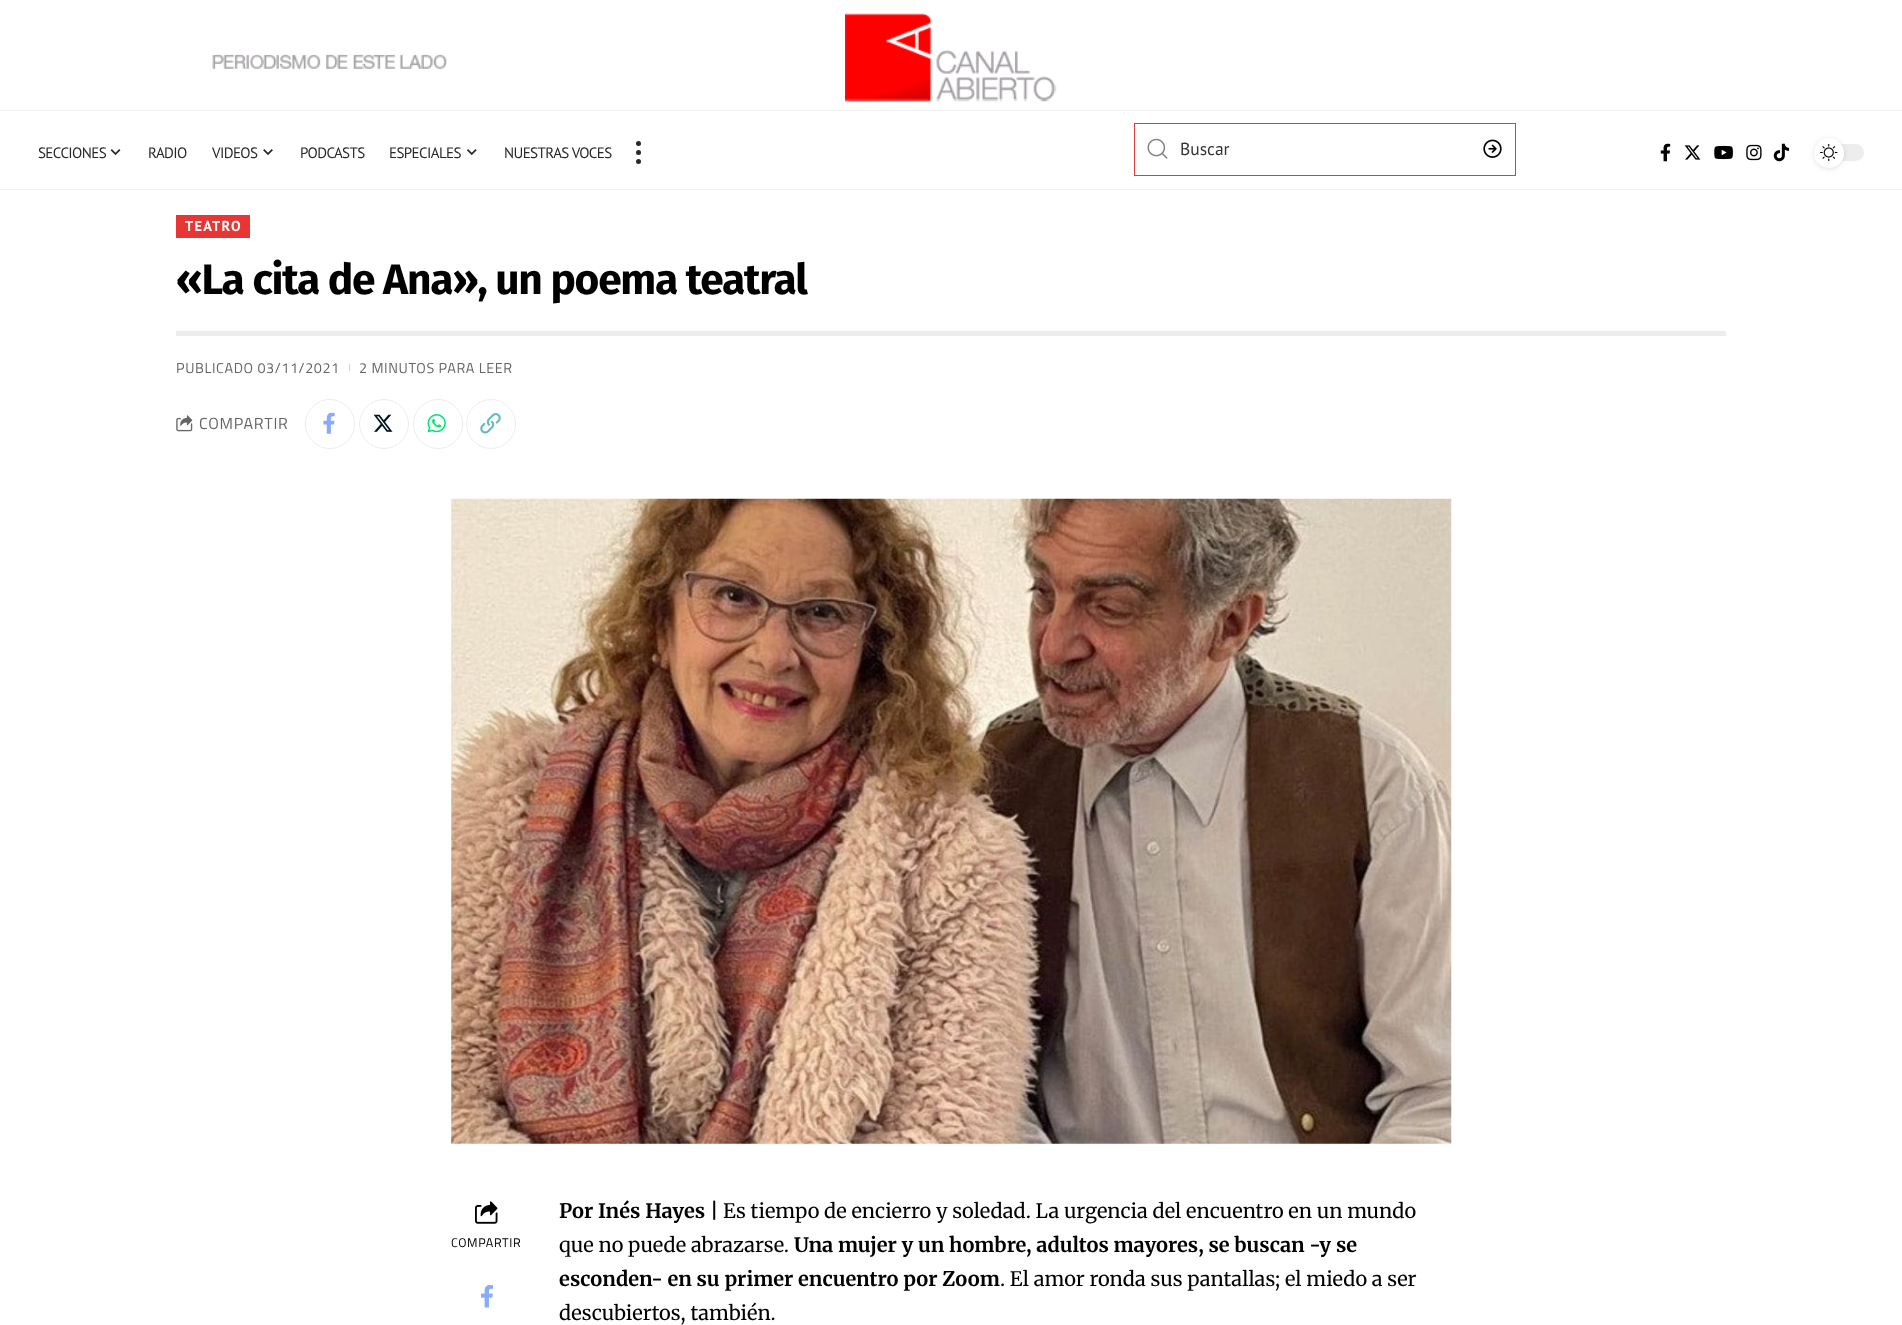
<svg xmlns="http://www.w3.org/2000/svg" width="1902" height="1325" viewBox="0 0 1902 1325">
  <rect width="100%" height="100%" fill="rgb(255,255,255)"/>
  <rect x="0" y="110" width="1902" height="1" fill="rgb(240,240,240)"/>
  <image x="212" y="54" width="235" height="15" href="pic1.png"/>
  <image x="845" y="13" width="212" height="89" href="pic2.png"/>
  <rect x="0" y="189" width="1902" height="1" fill="rgb(240,240,240)"/>
  <text x="38" y="158" font-family="PT Sans" font-size="15" letter-spacing="-0.6" fill="rgb(40,40,40)">SECCIONES</text>
  <image x="110" y="149" width="11" height="7" href="pic3.png"/>
  <g font-family="PT Sans" font-size="15" letter-spacing="-0.6" fill="rgb(40,40,40)">
    <text x="148" y="158">RADIO</text>
    <text x="212" y="158">VIDEOS</text>
  </g>
  <image x="263" y="149" width="10" height="6" href="pic4.png"/>
  <g font-family="PT Sans" font-size="15" letter-spacing="-0.6" fill="rgb(40,40,40)">
    <text x="300" y="158">PODCASTS</text>
    <text x="389" y="158">ESPECIALES</text>
  </g>
  <image x="466" y="149" width="11" height="7" href="pic5.png"/>
  <text x="504" y="158" font-family="PT Sans" font-size="15" letter-spacing="-0.6" fill="rgb(40,40,40)">NUESTRAS VOCES</text>
  <circle cx="638.5" cy="143.5" r="2.5" fill="rgb(40,40,40)"/>
  <circle cx="638.5" cy="152.5" r="2.5" fill="rgb(40,40,40)"/>
  <circle cx="638.5" cy="161.5" r="2.5" fill="rgb(40,40,40)"/>
  <rect x="1134.5" y="123.5" width="381" height="52" fill="none" stroke="rgb(222,60,60)"/>
  <image x="1147" y="138" width="21" height="21" href="pic6.png"/>
  <text x="1180" y="155" font-family="PT Sans" font-size="17.5" fill="rgb(51,51,51)">Buscar</text>
  <image x="1483" y="139" width="19" height="19" href="pic7.png"/>
  <image x="1660" y="143" width="11" height="19" href="pic8.png"/>
  <image x="1684" y="145" width="17" height="15" href="pic9.png"/>
  <image x="1714" y="145" width="19" height="15" href="pic10.png"/>
  <image x="1746" y="144" width="16" height="17" href="pic11.png"/>
  <image x="1773" y="143" width="17" height="19" href="pic12.png"/>
  <rect x="1814" y="144" width="50" height="17" rx="8.5" fill="rgb(237,237,237)"/>
  <rect x="1814" y="139" width="30" height="30" rx="15" fill="rgba(0,0,0,0.12)" filter="blur(2.5px)"/>
  <circle cx="1829" cy="153" r="15" fill="rgb(255,255,255)"/>
  <image x="1820" y="144" width="18" height="17" href="pic13.png"/>
  <rect x="176" y="215" width="74" height="23" fill="rgb(234,53,53)"/>
  <text x="185" y="231" font-family="PT Sans" font-size="14.4" font-weight="bold" letter-spacing="1.25" fill="rgb(255,255,255)">TEATRO</text>
  <text x="176" y="294" font-family="Fira Sans" font-size="42.5" font-weight="bold" letter-spacing="-1.25" fill="rgb(0,0,0)">«La cita de Ana», un poema teatral</text>
  <rect x="176" y="331" width="1550" height="5" fill="rgb(237,237,237)"/>
  <text x="176" y="373" font-family="Titillium Web" font-size="14.4" letter-spacing="0.6" fill="rgb(102,102,102)">PUBLICADO 03/11/2021</text>
  <rect x="349" y="364" width="1" height="7" fill="rgb(209,209,209)"/>
  <text x="359" y="373" font-family="Titillium Web" font-size="14.4" letter-spacing="0.6" fill="rgb(102,102,102)">2 MINUTOS PARA LEER</text>
  <image x="176" y="415" width="17" height="17" href="pic14.png"/>
  <text x="199" y="429" font-family="Titillium Web" font-size="16" letter-spacing="0.75" fill="rgb(102,102,102)">COMPARTIR</text>
  <circle cx="330" cy="424" r="24.5" fill="none" stroke="rgb(237,237,237)"/>
  <image x="323" y="412" width="12" height="22" href="pic15.png"/>
  <circle cx="384" cy="424" r="24.5" fill="none" stroke="rgb(237,237,237)"/>
  <image x="373" y="414" width="20" height="18" href="pic16.png"/>
  <circle cx="438" cy="424" r="24.5" fill="none" stroke="rgb(237,237,237)"/>
  <image x="427" y="414" width="19" height="19" href="pic17.png"/>
  <circle cx="491" cy="424" r="24.5" fill="none" stroke="rgb(237,237,237)"/>
  <image x="480" y="413" width="21" height="21" href="pic18.png"/>
  <image x="451" y="498" width="1001" height="646" href="pic19.png"/>
  <image x="475" y="1201" width="23" height="23" href="pic20.png"/>
  <text x="451" y="1247" font-family="Titillium Web" font-size="12.5" letter-spacing="0.6" fill="rgb(0,0,0)">COMPARTIR</text>
  <image x="481" y="1285" width="13" height="23" href="pic21.png"/>
  <text x="559" y="1218" font-family="Merriweather" font-size="20" font-weight="bold" fill="rgb(0,0,0)">Por Inés Hayes |</text>
  <g font-family="Merriweather" font-size="20" fill="rgb(0,0,0)">
    <text x="723" y="1218">Es tiempo de encierro y soledad. La urgencia del encuentro en un mundo</text>
    <text x="559" y="1252">que no puede abrazarse.</text>
  </g>
  <g font-family="Merriweather" font-size="20" font-weight="bold" fill="rgb(0,0,0)">
    <text x="794" y="1252">Una mujer y un hombre, adultos mayores, se buscan -y se</text>
    <text x="559" y="1286">esconden- en su primer encuentro por Zoom</text>
  </g>
  <g font-family="Merriweather" font-size="20" fill="rgb(0,0,0)">
    <text x="1000" y="1286">. El amor ronda sus pantallas; el miedo a ser</text>
    <text x="559" y="1320">descubiertos, también.</text>
  </g>
</svg>
